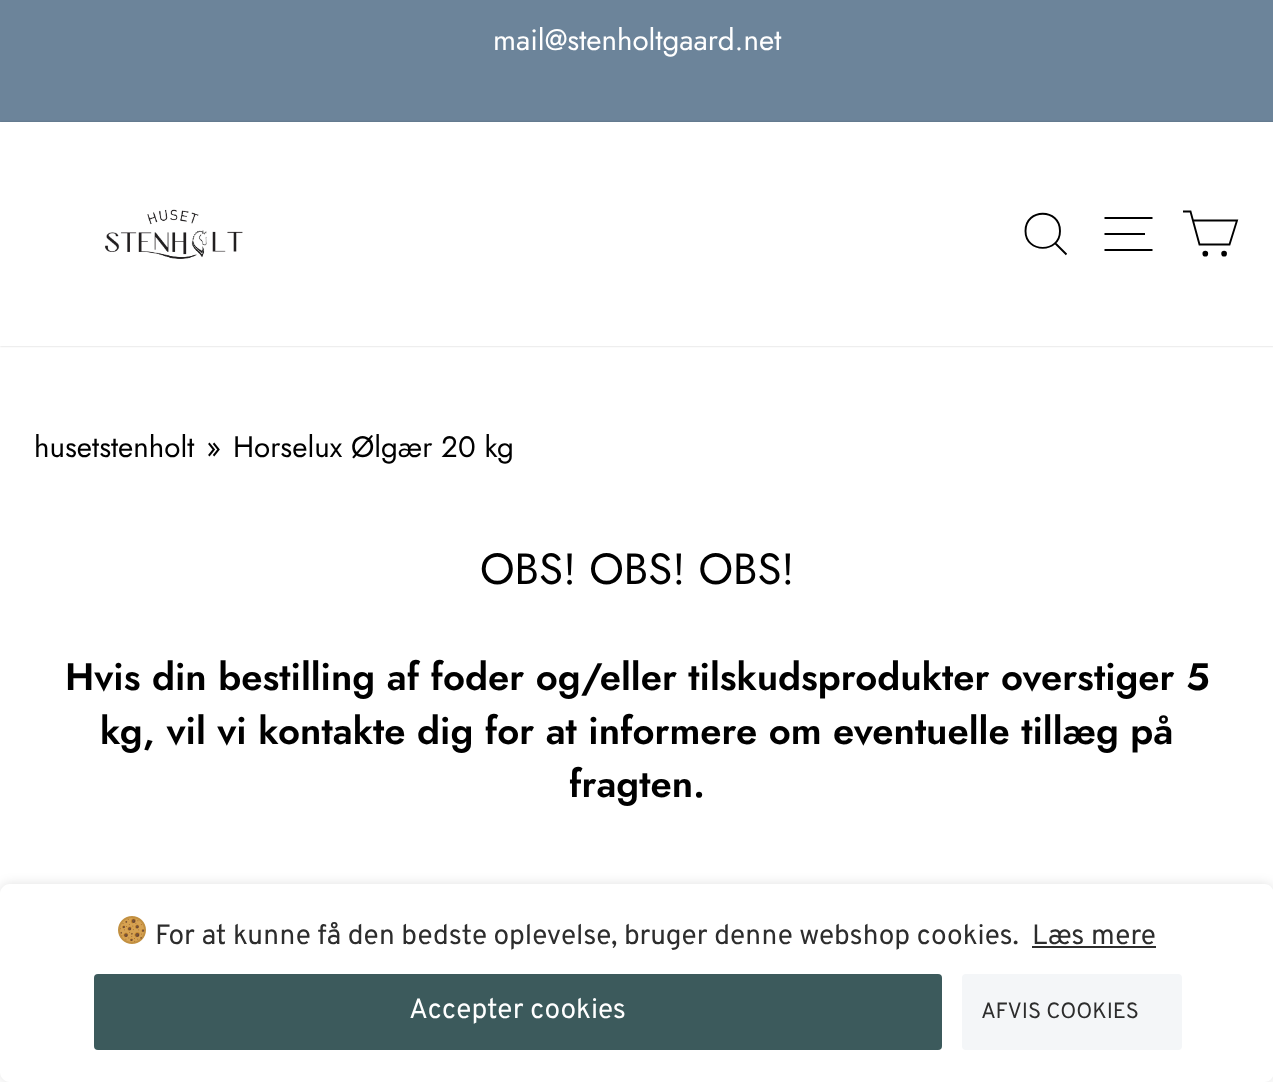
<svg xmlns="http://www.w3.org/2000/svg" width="1273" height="1082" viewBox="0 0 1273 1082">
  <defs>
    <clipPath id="clip1"><path d="M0 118H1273V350H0ZM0 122H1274V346H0Z" clip-rule="evenodd"/></clipPath>
    <clipPath id="clip2"><path d="M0 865H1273V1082H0ZM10 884H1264C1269.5 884 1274 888.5 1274 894V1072C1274 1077.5 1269.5 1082 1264 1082H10C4.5 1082 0 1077.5 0 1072V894C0 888.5 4.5 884 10 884Z" clip-rule="evenodd"/></clipPath>
  </defs>
  <rect width="100%" height="100%" fill="rgb(255,255,255)"/>
  <rect x="0" y="0" width="1273" height="122" fill="rgb(108,132,154)"/>
  <text x="493" y="50" font-family="Jost" font-size="29.5" fill="rgb(255,255,255)">mail@stenholtgaard.net</text>
  <g clip-path="url(#clip1)">
    <rect x="0" y="122" width="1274" height="224" fill="rgba(0,0,0,0.2)" filter="blur(1px)"/>
  </g>
  <image x="104" y="209" width="139" height="50" href="pic1.png"/>
  <path d="M1060 231C1060 253.5 1025.5 253.5 1025.5 231C1025.5 208 1060 208 1060 231ZM1066.5 254.5L1055.5 243.5" fill="none" stroke="rgb(0,0,0)" stroke-width="1.9"/>
  <path d="M1104.5 218H1152.5M1104.5 234H1145M1104.5 250H1152.5" fill="none" stroke="rgb(0,0,0)" stroke-width="1.9"/>
  <path d="M1193 220.5H1237L1229.5 244.5H1199.5L1190.5 211.5H1183" fill="none" stroke="rgb(0,0,0)" stroke-width="1.9"/>
  <circle cx="1205.3" cy="253.7" r="1.9" fill="rgb(0,0,0)" stroke="rgb(0,0,0)" stroke-width="1.9"/>
  <circle cx="1224.1" cy="253.7" r="1.9" fill="rgb(0,0,0)" stroke="rgb(0,0,0)" stroke-width="1.9"/>
  <g font-family="Jost" font-size="29.5" fill="rgb(0,0,0)">
    <text x="34" y="457">husetstenholt</text>
    <text x="206" y="457">»</text>
    <text x="233" y="457">Horselux Ølgær 20 kg</text>
  </g>
  <text x="480" y="584" font-family="Jost" font-size="43.75" fill="rgb(0,0,0)">OBS! OBS! OBS!</text>
  <g font-family="Jost" font-size="38.25" font-weight="600" fill="rgb(0,0,0)">
    <text x="65" y="690">Hvis din bestilling af foder og/eller tilskudsprodukter overstiger 5</text>
    <text x="100" y="744">kg, vil vi kontakte dig for at informere om eventuelle tillæg på</text>
    <text x="569" y="797">fragten.</text>
  </g>
  <g clip-path="url(#clip2)">
    <rect x="0" y="884" width="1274" height="198" rx="10" fill="rgba(0,0,0,0.12)" filter="blur(6px)"/>
  </g>
  <image x="118" y="916" width="28" height="28" href="pic2.png"/>
  <g font-family="Overpass" font-size="28" fill="rgb(45,45,45)">
    <text x="155" y="944">For at kunne få den bedste oplevelse, bruger denne webshop cookies.</text>
    <text x="1032" y="944">Læs mere</text>
  </g>
  <rect x="1032" y="946" width="124" height="2" fill="rgb(45,45,45)"/>
  <rect x="94" y="974" width="848" height="76" rx="4" fill="rgb(60,90,92)"/>
  <text x="409" y="1018" font-family="Overpass" font-size="28" fill="rgb(255,255,255)">Accepter cookies</text>
  <rect x="962" y="974" width="220" height="76" rx="4" fill="rgb(244,246,248)"/>
  <text x="981" y="1018" font-family="Overpass" font-size="22" fill="rgb(45,45,45)">AFVIS COOKIES</text>
</svg>
